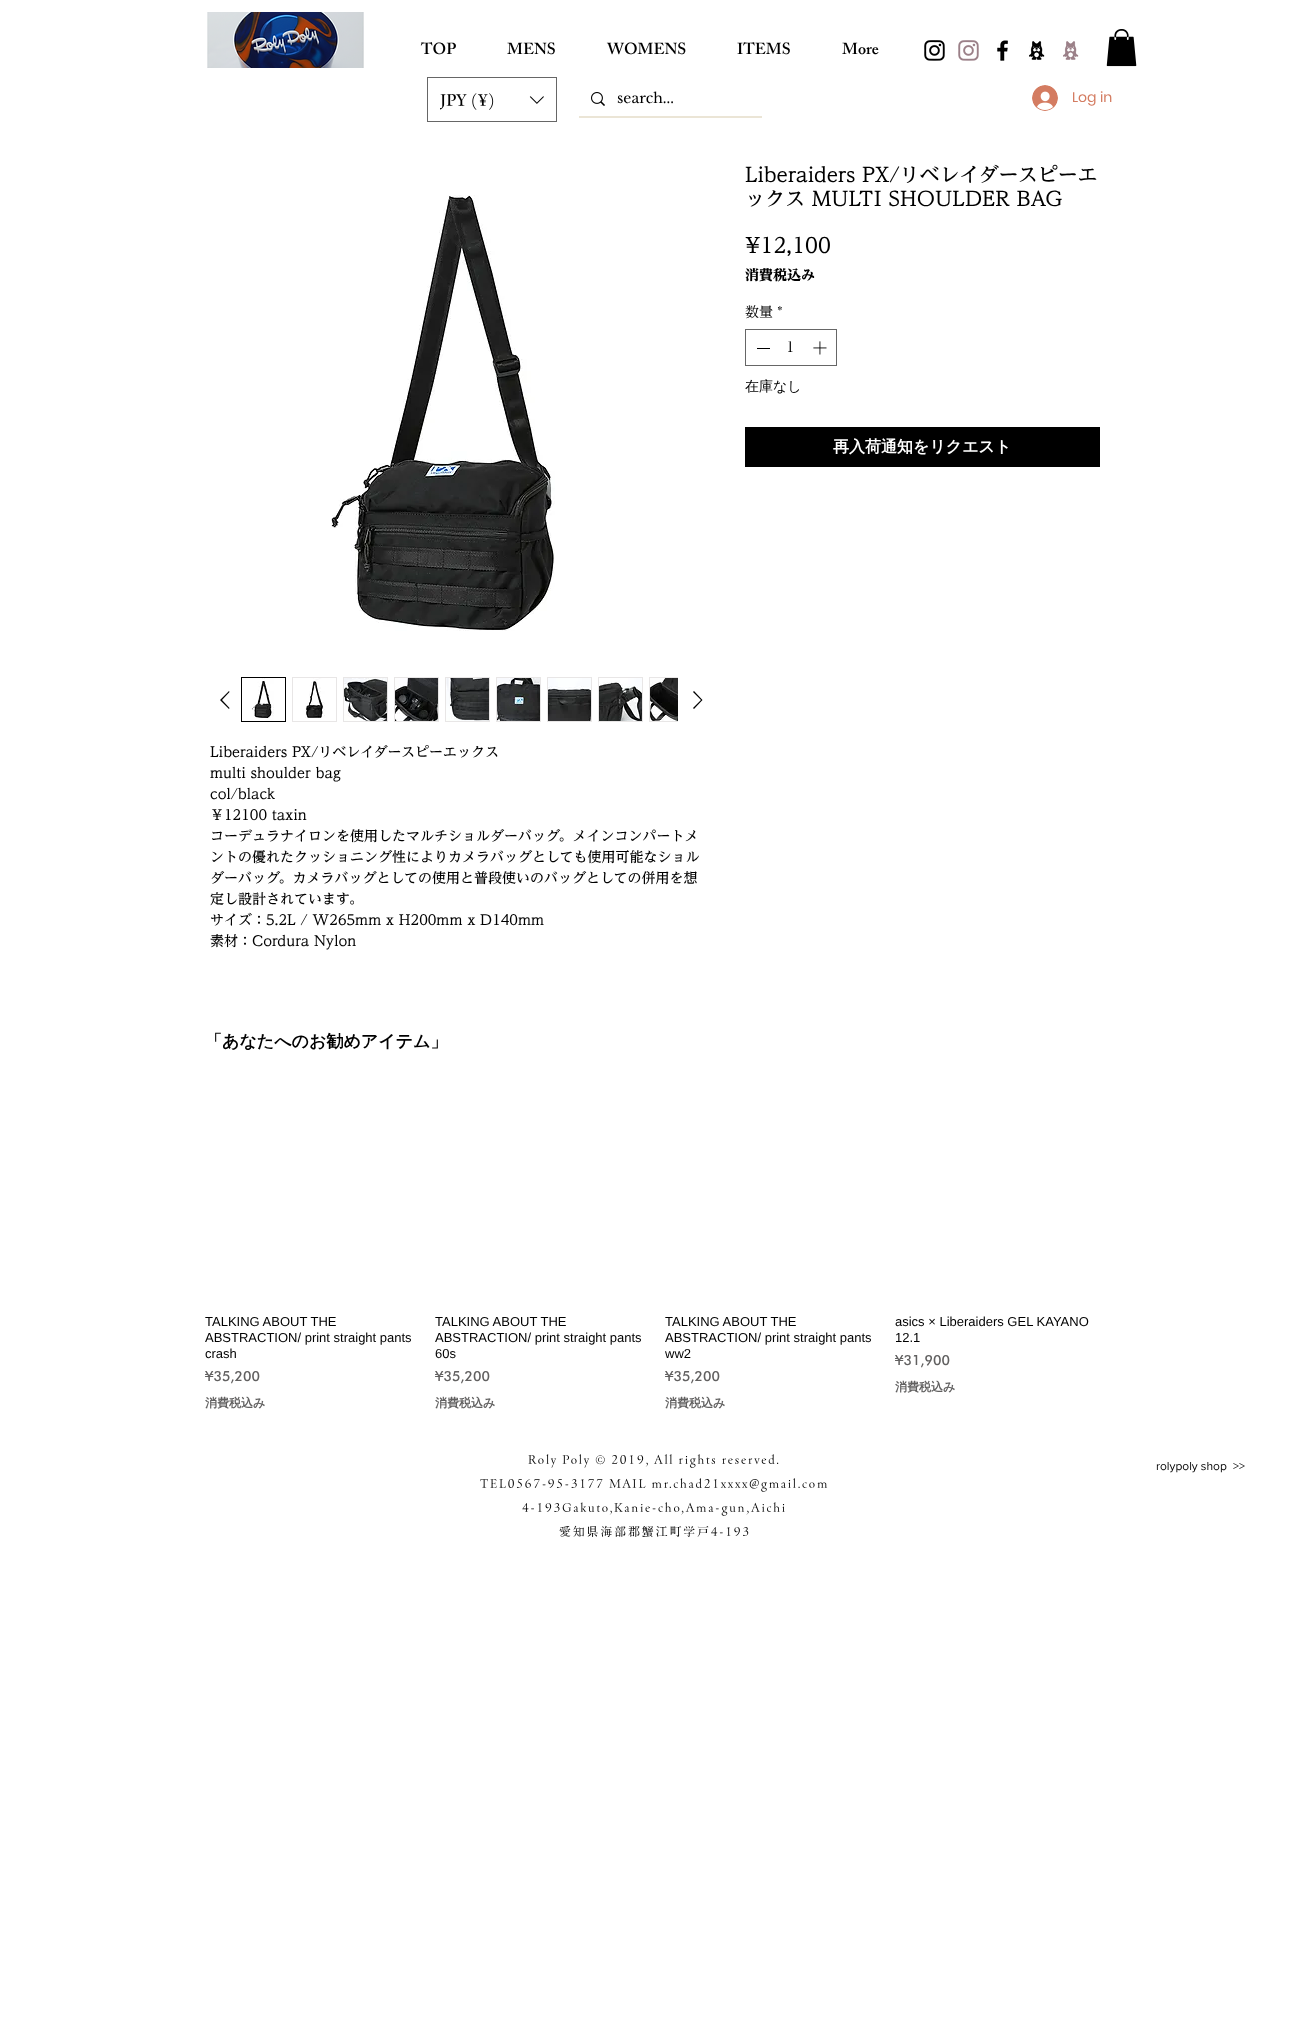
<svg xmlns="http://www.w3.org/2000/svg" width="1309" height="2036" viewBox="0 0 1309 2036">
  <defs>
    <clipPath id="clip1"><rect x="440" y="90" width="81" height="20"/></clipPath>
    <clipPath id="clip2"><rect x="205" y="1088" width="900" height="324"/></clipPath>
  </defs>
  <rect width="100%" height="100%" fill="rgb(255,255,255)"/>
  <image x="207" y="12" width="157" height="56" href="pic1.png"/>
  <g font-family="'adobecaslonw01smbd'" font-size="16" font-weight="600" fill="rgb(0,0,0)">
    <text x="421" y="54">TOP</text>
    <text x="507" y="54">MENS</text>
    <text x="607" y="54">WOMENS</text>
    <text x="737" y="54">ITEMS</text>
    <text x="842" y="54">More</text>
  </g>
  <image x="924" y="40" width="21" height="21" href="pic2.png"/>
  <image x="958" y="40" width="21" height="21" href="pic3.png"/>
  <image x="997" y="40" width="11" height="21" href="pic4.png"/>
  <image x="1029" y="41" width="16" height="19" href="pic5.png"/>
  <image x="1063" y="41" width="16" height="19" href="pic6.png"/>
  <image x="1106" y="29" width="31" height="38" href="pic7.png"/>
  <rect x="427.5" y="77.5" width="129" height="44" fill="none" stroke="rgb(102,102,102)"/>
  <g clip-path="url(#clip1)">
    <text x="440" y="106" font-family="'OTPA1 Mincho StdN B'" font-size="16" font-weight="bold" fill="rgb(0,0,0)">JPY (¥)</text>
  </g>
  <image x="529" y="96" width="15" height="8" href="pic8.png"/>
  <rect x="579" y="116" width="183" height="2" fill="rgb(235,229,214)"/>
  <image x="591" y="92" width="14" height="14" href="pic9.png"/>
  <text x="617" y="103" font-family="Libre Baskerville" font-size="14" fill="rgb(0,0,0)">search...</text>
  <image x="1032" y="85" width="26" height="26" href="pic10.png"/>
  <text x="1072" y="102" font-family="Poppins" font-size="14" fill="rgb(212,124,97)">Log in</text>
  <g font-family="'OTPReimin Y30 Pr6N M'" font-size="20" font-weight="500" fill="rgb(0,0,0)">
    <text>
      <tspan x="745" y="182">Liberaiders PX/リベレイダースピーエ</tspan>
      <tspan x="745" y="206">ックス MULTI SHOULDER BAG</tspan>
    </text>
  </g>
  <text x="745" y="253" font-family="'OTPReimin Y30 Pr6N M'" font-size="21" font-weight="500" fill="rgb(0,0,0)">¥12,100</text>
  <text x="745" y="280" font-family="'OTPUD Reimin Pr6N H'" font-size="14" font-weight="900" fill="rgb(0,0,0)">消費税込み</text>
  <g font-family="'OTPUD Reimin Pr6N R'" font-size="14" fill="rgb(0,0,0)">
    <text x="745" y="317">数量</text>
    <text x="777" y="317">*</text>
  </g>
  <rect x="745.5" y="329.5" width="91" height="36" fill="none" stroke="rgb(102,102,102)"/>
  <rect x="757" y="348" width="13" height="1" fill="rgb(0,0,0)"/>
  <text x="786" y="352" font-family="'OTPUD Reimin Pr6N R'" font-size="14" fill="rgb(0,0,0)">1</text>
  <image x="813" y="341" width="14" height="14" href="pic11.png"/>
  <text x="745" y="391" font-family="WenQuanYi Zen Hei" font-size="14" font-weight="500" fill="rgb(0,0,0)">在庫なし</text>
  <rect x="745" y="427" width="355" height="40" fill="rgb(0,0,0)"/>
  <text x="833" y="452" font-family="WenQuanYi Zen Hei" font-size="16" font-weight="bold" fill="rgb(255,255,255)">再入荷通知をリクエスト</text>
  <image x="331" y="195" width="224" height="436" href="pic12.png"/>
  <path d="M229 691L229.5 692L222 700L229.5 708L229 709L220 700Z" fill="rgb(0,0,0)" fill-rule="evenodd"/>
  <rect x="241.5" y="677.5" width="44" height="44" fill="none" stroke="rgb(0,0,0)"/>
  <image x="242" y="678" width="43" height="43" href="pic13.png"/>
  <rect x="292" y="677" width="45" height="45" fill="rgb(232,230,230)"/>
  <image x="293" y="678" width="43" height="43" href="pic14.png"/>
  <rect x="343" y="677" width="45" height="45" fill="rgb(232,230,230)"/>
  <image x="344" y="678" width="43" height="43" href="pic15.png"/>
  <rect x="394" y="677" width="45" height="45" fill="rgb(232,230,230)"/>
  <image x="395" y="678" width="43" height="43" href="pic16.png"/>
  <rect x="445" y="677" width="45" height="45" fill="rgb(232,230,230)"/>
  <image x="446" y="678" width="43" height="43" href="pic17.png"/>
  <rect x="496" y="677" width="45" height="45" fill="rgb(232,230,230)"/>
  <image x="497" y="678" width="43" height="43" href="pic18.png"/>
  <rect x="547" y="677" width="45" height="45" fill="rgb(232,230,230)"/>
  <image x="548" y="678" width="43" height="43" href="pic19.png"/>
  <rect x="598" y="677" width="45" height="45" fill="rgb(232,230,230)"/>
  <image x="599" y="678" width="43" height="43" href="pic20.png"/>
  <rect x="649" y="677" width="29" height="45" fill="rgb(232,230,230)"/>
  <image x="650" y="678" width="28" height="43" href="pic21.png"/>
  <path d="M694 691L702.5 700L694 709L693 708L701 700L693 692Z" fill="rgb(0,0,0)" fill-rule="evenodd"/>
  <g font-family="'OTPReimin Y30 Pr6N M'" font-size="14" font-weight="500" fill="rgb(0,0,0)">
    <text>
      <tspan x="210" y="757">Liberaiders PX/リベレイダースピーエックス</tspan>
      <tspan x="210" y="778">multi shoulder bag</tspan>
      <tspan x="210" y="799">col/black</tspan>
      <tspan x="210" y="820">￥12100 taxin</tspan>
      <tspan x="210" y="841">コーデュラナイロンを使用したマルチショルダーバッグ。メインコンパートメ</tspan>
      <tspan x="210" y="862">ントの優れたクッショニング性によりカメラバッグとしても使用可能なショル</tspan>
      <tspan x="210" y="883">ダーバッグ。カメラバッグとしての使用と普段使いのバッグとしての併用を想</tspan>
      <tspan x="210" y="904">定し設計されています。</tspan>
      <tspan x="210" y="925">サイズ：5.2L / W265mm x H200mm x D140mm</tspan>
      <tspan x="210" y="946">素材：Cordura Nylon</tspan>
    </text>
  </g>
  <text x="205" y="1047" font-family="WenQuanYi Zen Hei" font-size="17" font-weight="bold" fill="rgb(0,0,0)">「あなたへのお勧めアイテム」</text>
  <g font-family="Liberation Sans" font-size="13" fill="rgb(0,0,0)">
    <text>
      <tspan x="205" y="1326">TALKING ABOUT THE</tspan>
      <tspan x="205" y="1342">ABSTRACTION/ print straight pants</tspan>
      <tspan x="205" y="1358">crash</tspan>
    </text>
  </g>
  <g clip-path="url(#clip2)">
    <text x="205" y="1381" font-family="Futura" font-size="14" font-weight="500" fill="rgb(97,96,96)">¥35,200</text>
  </g>
  <text x="205" y="1407" font-family="WenQuanYi Zen Hei" font-size="12" font-weight="bold" fill="rgb(97,96,96)">消費税込み</text>
  <g font-family="Liberation Sans" font-size="13" fill="rgb(0,0,0)">
    <text>
      <tspan x="435" y="1326">TALKING ABOUT THE</tspan>
      <tspan x="435" y="1342">ABSTRACTION/ print straight pants</tspan>
      <tspan x="435" y="1358">60s</tspan>
    </text>
  </g>
  <text x="435" y="1381" font-family="Futura" font-size="14" font-weight="500" fill="rgb(97,96,96)">¥35,200</text>
  <text x="435" y="1407" font-family="WenQuanYi Zen Hei" font-size="12" font-weight="bold" fill="rgb(97,96,96)">消費税込み</text>
  <g font-family="Liberation Sans" font-size="13" fill="rgb(0,0,0)">
    <text>
      <tspan x="665" y="1326">TALKING ABOUT THE</tspan>
      <tspan x="665" y="1342">ABSTRACTION/ print straight pants</tspan>
      <tspan x="665" y="1358">ww2</tspan>
    </text>
  </g>
  <text x="665" y="1381" font-family="Futura" font-size="14" font-weight="500" fill="rgb(97,96,96)">¥35,200</text>
  <text x="665" y="1407" font-family="WenQuanYi Zen Hei" font-size="12" font-weight="bold" fill="rgb(97,96,96)">消費税込み</text>
  <g font-family="Liberation Sans" font-size="13" fill="rgb(0,0,0)">
    <text>
      <tspan x="895" y="1326">asics × Liberaiders GEL KAYANO</tspan>
      <tspan x="895" y="1342">12.1</tspan>
    </text>
  </g>
  <text x="895" y="1365" font-family="Futura" font-size="14" font-weight="500" fill="rgb(97,96,96)">¥31,900</text>
  <text x="895" y="1391" font-family="WenQuanYi Zen Hei" font-size="12" font-weight="bold" fill="rgb(97,96,96)">消費税込み</text>
  <g font-family="'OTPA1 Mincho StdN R'" font-size="12" letter-spacing="1.8" fill="rgb(0,0,0)">
    <text x="528" y="1464">Roly Poly © 2019, All rights reserved.</text>
    <text x="480" y="1488">TEL0567-95-3177 MAIL mr.chad21xxxx@gmail.com</text>
    <text x="522" y="1512">4-193Gakuto,Kanie-cho,Ama-gun,Aichi</text>
    <text x="559" y="1536">愛知県海部郡蟹江町学戸4-193</text>
  </g>
  <text x="1156" y="1470" font-family="'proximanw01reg'" font-size="12" fill="rgb(0,0,0)" xml:space="preserve">rolypoly shop  &gt;&gt;</text>
</svg>
